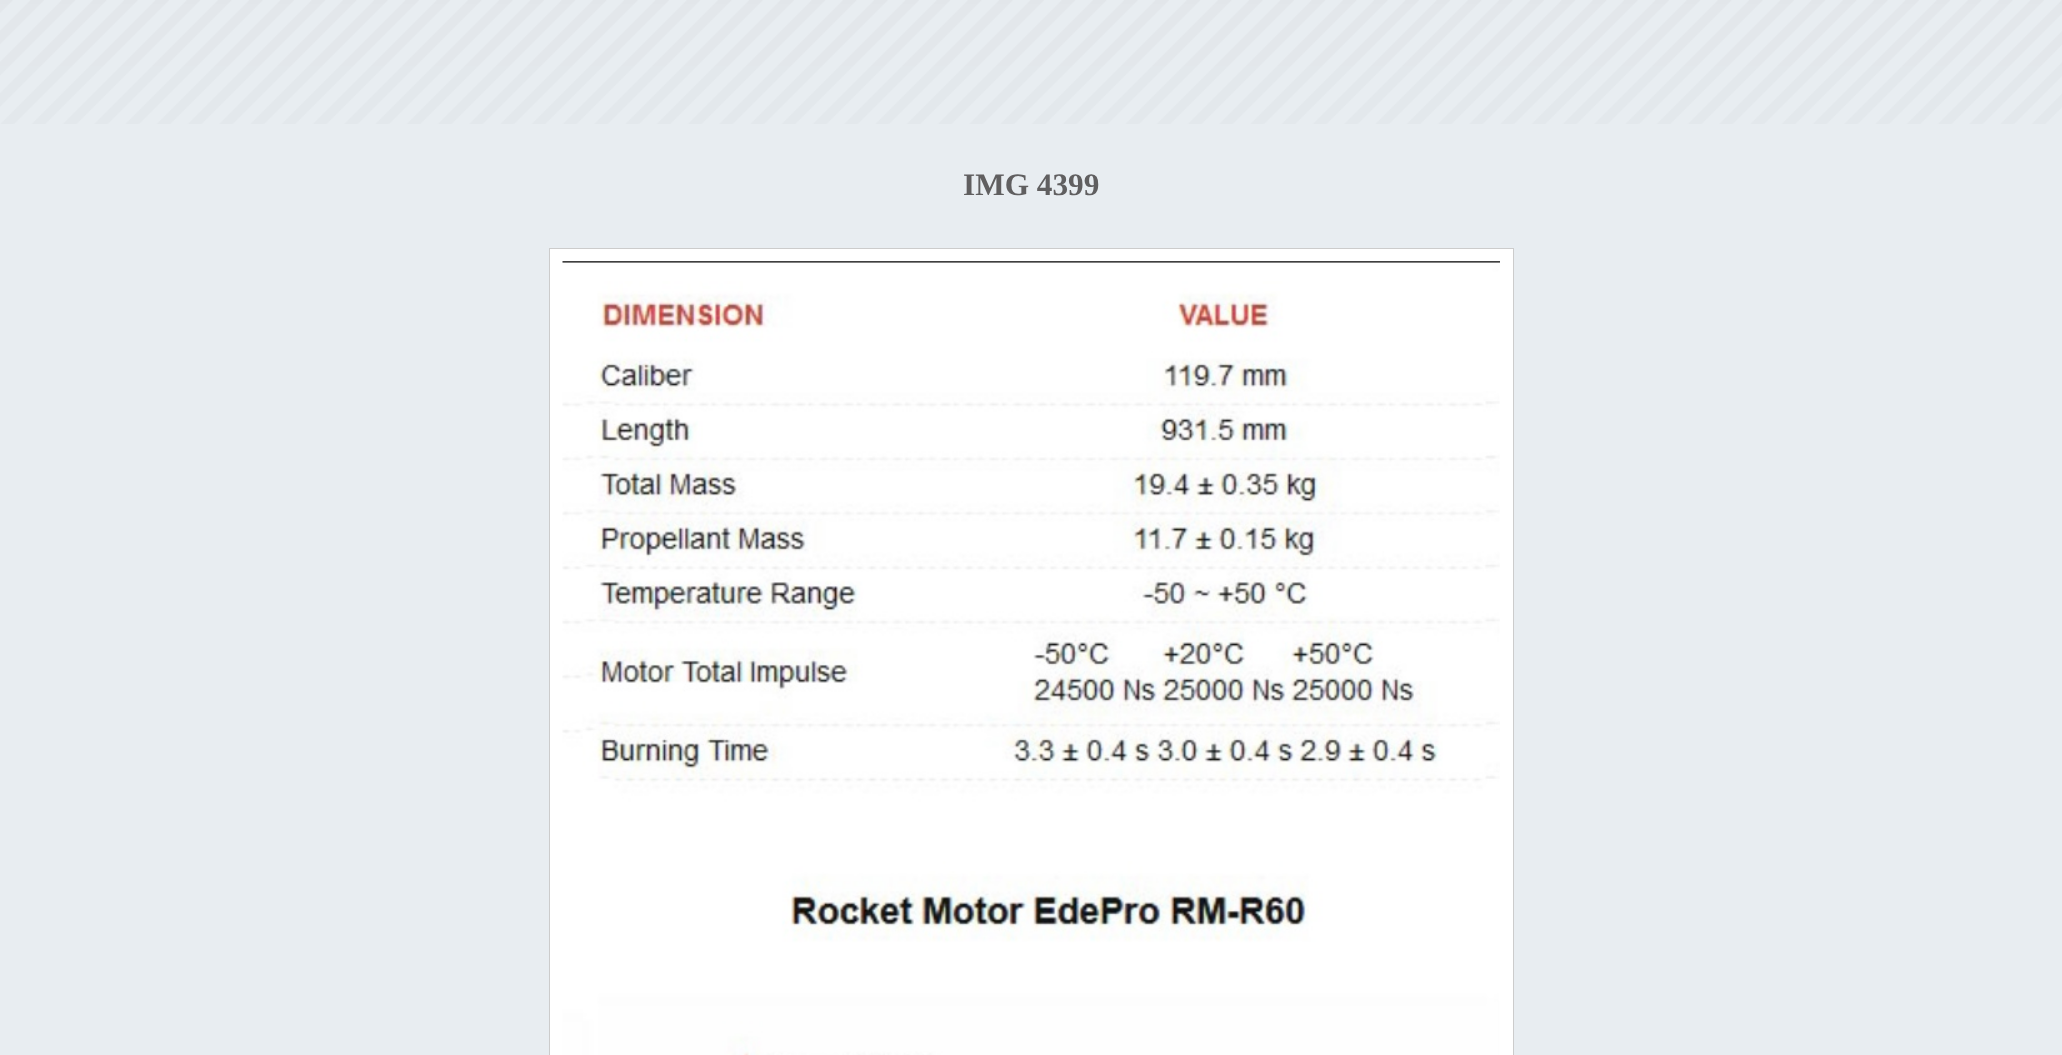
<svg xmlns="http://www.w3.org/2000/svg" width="2062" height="1055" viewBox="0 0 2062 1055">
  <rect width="100%" height="100%" fill="rgb(232,237,241)"/>
  <image x="0" y="0" width="2062" height="124" href="pic1.png"/>
  <text x="963" y="195" font-family="Liberation Serif" font-size="31.25" font-weight="bold" fill="rgb(96,95,96)">IMG 4399</text>
  <rect x="549.5" y="248.5" width="964" height="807" fill="rgb(255,255,255)" stroke="rgb(204,204,204)"/>
  <image x="562" y="261" width="938" height="794" href="pic2.png"/>
</svg>
